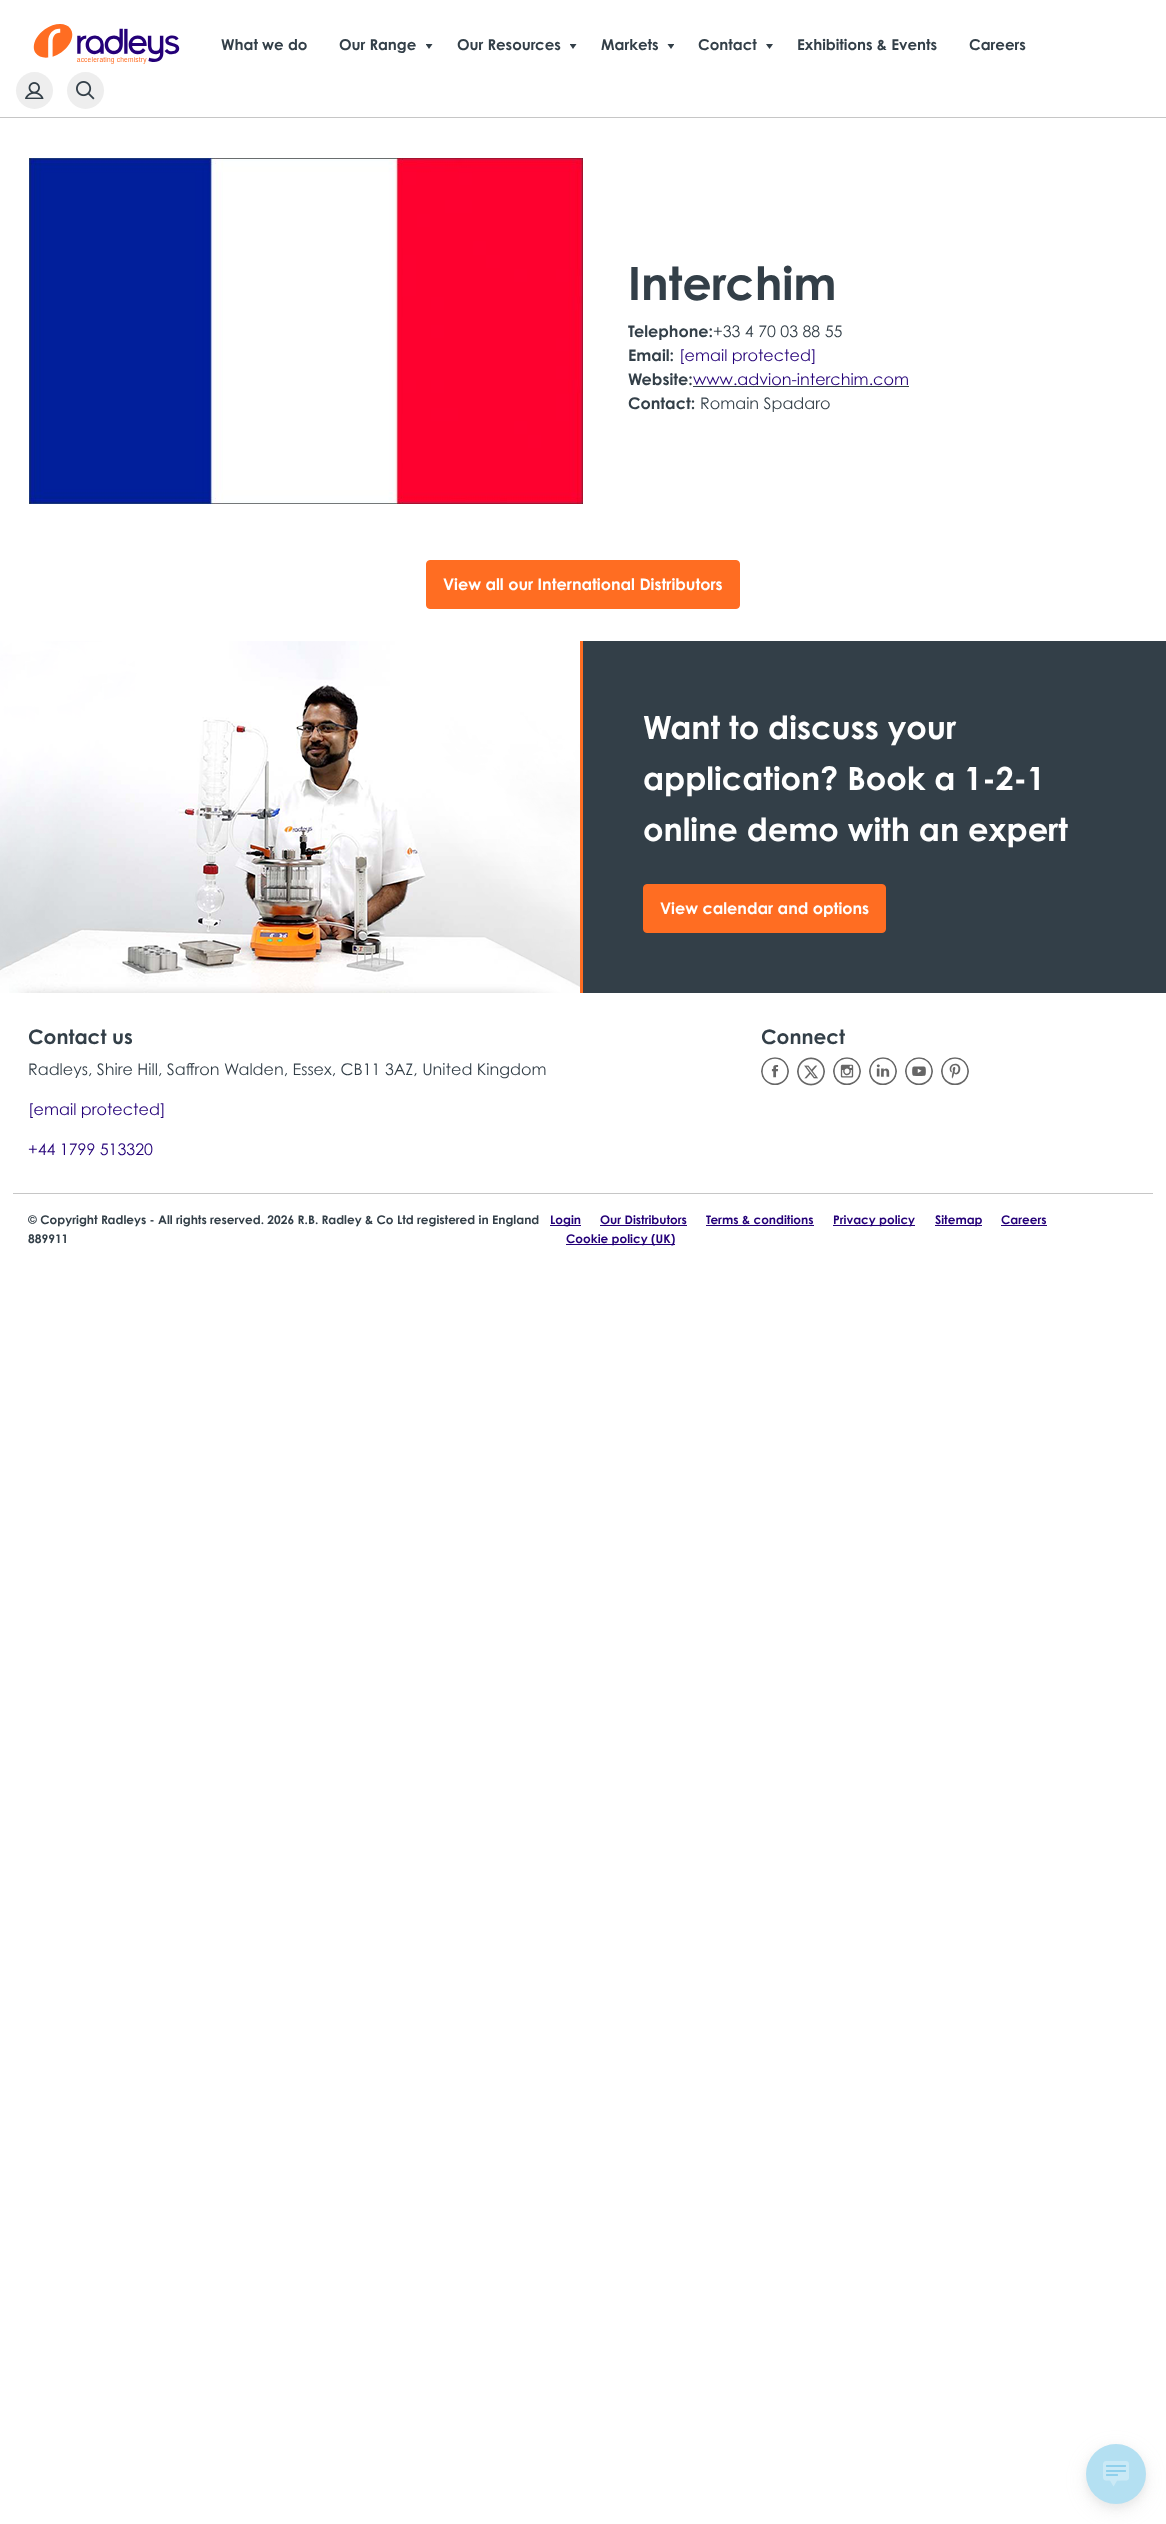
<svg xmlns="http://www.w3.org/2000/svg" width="1166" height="2524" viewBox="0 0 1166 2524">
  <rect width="100%" height="100%" fill="rgb(255,255,255)"/>
  <rect x="0" y="117" width="1166" height="1" fill="rgb(198,198,198)"/>
  <image x="33" y="24" width="147" height="40" href="pic1.png"/>
  <g font-family="Century Gothic" font-size="15" font-weight="bold" fill="rgb(51,63,72)">
    <text x="221" y="50">What we do</text>
    <text x="339" y="50">Our Range</text>
  </g>
  <path d="M426 44V44.5L429 49L432.5 44Z" fill="rgb(51,63,72)"/>
  <text x="457" y="50" font-family="Century Gothic" font-size="15" font-weight="bold" fill="rgb(51,63,72)">Our Resources</text>
  <path d="M570 44V44.5L573 49L576.5 44Z" fill="rgb(51,63,72)"/>
  <text x="601" y="50" font-family="Century Gothic" font-size="15" font-weight="bold" fill="rgb(51,63,72)">Markets</text>
  <path d="M671 49L667.5 44H674V44.5Z" fill="rgb(51,63,72)"/>
  <text x="698" y="50" font-family="Century Gothic" font-size="15" font-weight="bold" fill="rgb(51,63,72)">Contact</text>
  <path d="M769.5 49L766 44H773Z" fill="rgb(51,63,72)"/>
  <g font-family="Century Gothic" font-size="15" font-weight="bold" fill="rgb(51,63,72)">
    <text x="797" y="50">Exhibitions &amp; Events</text>
    <text x="969" y="50">Careers</text>
  </g>
  <circle cx="34.5" cy="90.5" r="18.5" fill="rgb(238,238,238)"/>
  <image x="25" y="82" width="19" height="17" href="pic2.png"/>
  <circle cx="85.5" cy="90.5" r="18.5" fill="rgb(238,238,238)"/>
  <image x="76" y="81" width="19" height="19" href="pic3.png"/>
  <image x="29" y="158" width="554" height="346" href="pic4.png"/>
  <text x="628" y="300" font-family="Century Gothic" font-size="46" font-weight="bold" fill="rgb(51,63,72)">Interchim</text>
  <text x="628" y="337" font-family="Century Gothic" font-size="16" font-weight="bold" fill="rgb(51,63,72)">Telephone:</text>
  <text x="713" y="337" font-family="Century Gothic" font-size="16" fill="rgb(51,63,72)">+33 4 70 03 88 55</text>
  <text x="628" y="361" font-family="Century Gothic" font-size="16" font-weight="bold" fill="rgb(51,63,72)">Email:</text>
  <text x="679" y="361" font-family="Century Gothic" font-size="16" fill="rgb(36,0,120)">[email protected]</text>
  <text x="628" y="385" font-family="Century Gothic" font-size="16" font-weight="bold" fill="rgb(51,63,72)">Website:</text>
  <text x="693" y="385" font-family="Century Gothic" font-size="16" fill="rgb(36,0,120)">www.advion-interchim.com</text>
  <rect x="693" y="386" width="216" height="1" fill="rgb(51,63,72)"/>
  <text x="628" y="409" font-family="Century Gothic" font-size="16" font-weight="bold" fill="rgb(51,63,72)">Contact:</text>
  <text x="700" y="409" font-family="Century Gothic" font-size="16" fill="rgb(51,63,72)">Romain Spadaro</text>
  <rect x="426.5" y="560.5" width="313" height="48" rx="3.5" fill="rgb(255,109,34)" stroke="rgb(255,109,34)"/>
  <text x="443" y="590" font-family="Century Gothic" font-size="16" font-weight="bold" fill="rgb(255,255,255)">View all our International Distributors</text>
  <rect x="583" y="641" width="583" height="352" fill="rgb(51,63,72)"/>
  <rect x="580" y="641" width="3" height="352" fill="rgb(255,109,34)"/>
  <image x="0" y="641" width="580" height="352" href="pic5.png"/>
  <g font-family="Century Gothic" font-size="32" font-weight="bold" fill="rgb(255,255,255)">
    <text>
      <tspan x="643" y="739">Want to discuss your</tspan>
      <tspan x="643" y="790">application? Book a 1-2-1</tspan>
      <tspan x="643" y="841">online demo with an expert</tspan>
    </text>
  </g>
  <rect x="643.5" y="884.5" width="242" height="48" rx="3.5" fill="rgb(255,109,34)" stroke="rgb(255,109,34)"/>
  <text x="660" y="914" font-family="Century Gothic" font-size="16" font-weight="bold" fill="rgb(255,255,255)">View calendar and options</text>
  <rect x="13" y="1193" width="1140" height="1" fill="rgb(198,198,198)"/>
  <text x="28" y="1044" font-family="Century Gothic" font-size="20" font-weight="bold" fill="rgb(51,63,72)">Contact us</text>
  <text x="28" y="1075" font-family="Century Gothic" font-size="16" fill="rgb(51,63,72)">Radleys, Shire Hill, Saffron Walden, Essex, CB11 3AZ, United Kingdom</text>
  <g font-family="Century Gothic" font-size="16" fill="rgb(36,0,120)">
    <text x="28" y="1115">[email protected]</text>
    <text x="28" y="1155">+44 1799 513320</text>
  </g>
  <text x="761" y="1044" font-family="Century Gothic" font-size="20" font-weight="bold" fill="rgb(51,63,72)">Connect</text>
  <image x="761" y="1057" width="28" height="28" href="pic6.png"/>
  <image x="797" y="1057" width="28" height="29" href="pic7.png"/>
  <image x="833" y="1057" width="28" height="28" href="pic8.png"/>
  <image x="869" y="1057" width="28" height="28" href="pic9.png"/>
  <image x="905" y="1057" width="28" height="28" href="pic10.png"/>
  <image x="941" y="1057" width="28" height="28" href="pic11.png"/>
  <g font-family="Century Gothic" font-size="12" font-weight="bold" fill="rgb(51,63,72)">
    <text>
      <tspan x="28" y="1224">© Copyright Radleys - All rights reserved. 2026 R.B. Radley &amp; Co Ltd registered in England</tspan>
      <tspan x="28" y="1243">889911</tspan>
    </text>
  </g>
  <rect x="550" y="1225" width="31" height="1" fill="rgb(36,0,120)"/>
  <g font-family="Century Gothic" font-size="12" font-weight="bold" fill="rgb(36,0,120)">
    <text x="550" y="1224">Login</text>
    <text x="600" y="1224">Our Distributors</text>
  </g>
  <rect x="600" y="1225" width="87" height="1" fill="rgb(36,0,120)"/>
  <text x="706" y="1224" font-family="Century Gothic" font-size="12" font-weight="bold" fill="rgb(36,0,120)">Terms &amp; conditions</text>
  <rect x="706" y="1225" width="108" height="1" fill="rgb(36,0,120)"/>
  <rect x="833" y="1225" width="82" height="1" fill="rgb(36,0,120)"/>
  <text x="833" y="1224" font-family="Century Gothic" font-size="12" font-weight="bold" fill="rgb(36,0,120)">Privacy policy</text>
  <rect x="935" y="1225" width="47" height="1" fill="rgb(36,0,120)"/>
  <g font-family="Century Gothic" font-size="12" font-weight="bold" fill="rgb(36,0,120)">
    <text x="935" y="1224">Sitemap</text>
    <text x="1001" y="1224">Careers</text>
  </g>
  <rect x="1001" y="1225" width="46" height="1" fill="rgb(36,0,120)"/>
  <rect x="566" y="1244" width="109" height="1" fill="rgb(36,0,120)"/>
  <text x="566" y="1243" font-family="Century Gothic" font-size="12" font-weight="bold" fill="rgb(36,0,120)">Cookie policy (UK)</text>
  <rect x="1086" y="2450" width="60" height="60" rx="30" fill="rgba(179,179,179,0.19)" filter="blur(10px)"/>
  <rect x="1086" y="2448" width="60" height="60" rx="30" fill="rgba(179,179,179,0.2)" filter="blur(4px)"/>
  <circle cx="1116" cy="2474" r="30" fill="rgb(180,224,242)"/>
  <image x="1103" y="2461" width="26" height="26" href="pic12.png"/>
</svg>
